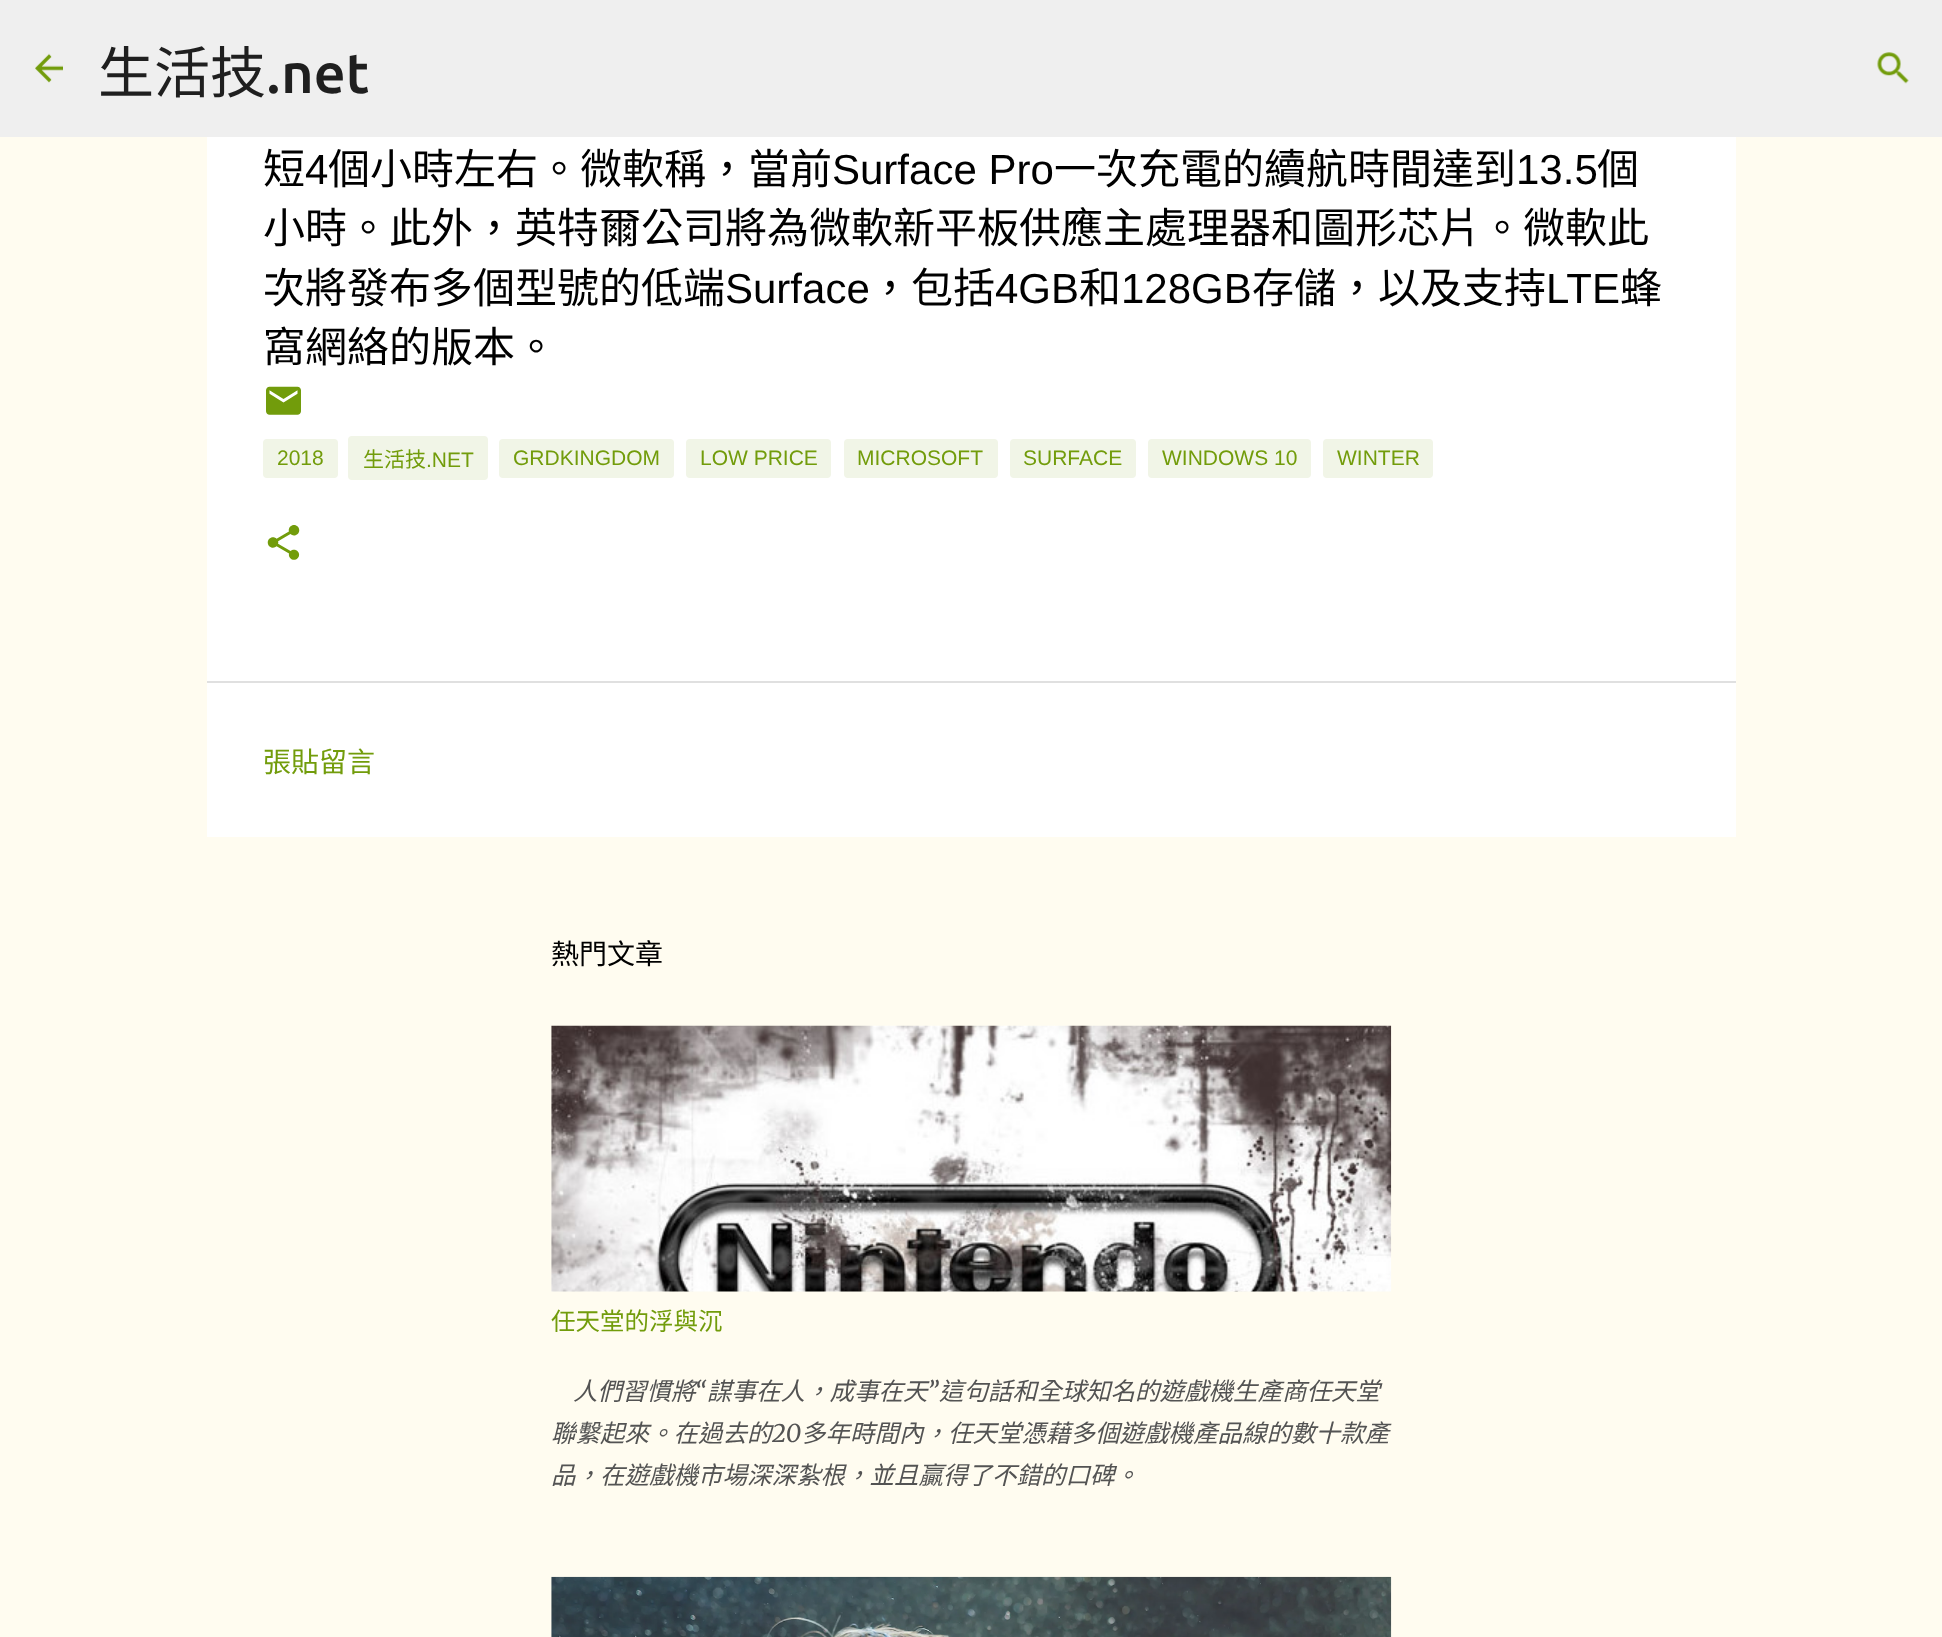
<svg xmlns="http://www.w3.org/2000/svg" width="1942" height="1637" viewBox="0 0 1942 1637">
  <rect width="100%" height="100%" fill="rgb(255,252,240)"/>
  <rect x="0" y="0" width="1942" height="137" fill="rgb(239,239,239)"/>
  <image x="35" y="53" width="28" height="30" href="pic1.png"/>
  <text x="98" y="93" font-family="Noto Sans CJK TC" font-size="56" fill="rgb(31,31,31)">生活技</text>
  <text x="266" y="93" font-family="Ubuntu" font-size="56" font-weight="500" fill="rgb(31,31,31)">.net</text>
  <image x="1877" y="52" width="32" height="32" href="pic2.png"/>
  <rect x="207" y="137" width="1529" height="544" fill="rgb(255,255,255)"/>
  <text x="263" y="184" font-family="Noto Sans CJK TC" font-size="42" fill="rgb(0,0,0)">短</text>
  <text x="305" y="184" font-family="Liberation Sans" font-size="42" fill="rgb(0,0,0)">4</text>
  <text x="328" y="184" font-family="Noto Sans CJK TC" font-size="42" fill="rgb(0,0,0)">個小時左右。微軟稱，當前</text>
  <text x="832" y="184" font-family="Liberation Sans" font-size="42" fill="rgb(0,0,0)">Surface Pro</text>
  <text x="1054" y="184" font-family="Noto Sans CJK TC" font-size="42" fill="rgb(0,0,0)">一次充電的續航時間達到</text>
  <text x="1516" y="184" font-family="Liberation Sans" font-size="42" fill="rgb(0,0,0)">13.5</text>
  <g font-family="Noto Sans CJK TC" font-size="42" fill="rgb(0,0,0)">
    <text x="1597" y="184">個</text>
    <text>
      <tspan x="263" y="243">小時。此外，英特爾公司將為微軟新平板供應主處理器和圖形芯片。微軟此</tspan>
      <tspan x="263" y="303">次將發布多個型號的低端</tspan>
    </text>
  </g>
  <text x="725" y="303" font-family="Liberation Sans" font-size="42" fill="rgb(0,0,0)">Surface</text>
  <text x="869" y="303" font-family="Noto Sans CJK TC" font-size="42" fill="rgb(0,0,0)">，包括</text>
  <text x="995" y="303" font-family="Liberation Sans" font-size="42" fill="rgb(0,0,0)">4GB</text>
  <text x="1079" y="303" font-family="Noto Sans CJK TC" font-size="42" fill="rgb(0,0,0)">和</text>
  <text x="1121" y="303" font-family="Liberation Sans" font-size="42" fill="rgb(0,0,0)">128GB</text>
  <text x="1252" y="303" font-family="Noto Sans CJK TC" font-size="42" fill="rgb(0,0,0)">存儲，以及支持</text>
  <text x="1546" y="303" font-family="Liberation Sans" font-size="42" fill="rgb(0,0,0)">LTE</text>
  <g font-family="Noto Sans CJK TC" font-size="42" fill="rgb(0,0,0)">
    <text x="1620" y="303">蜂</text>
    <text x="263" y="362">窩網絡的版本。</text>
  </g>
  <image x="266" y="386" width="35" height="29" href="pic3.png"/>
  <rect x="263" y="439" width="75" height="39" rx="4" fill="rgb(241,245,231)"/>
  <text x="277" y="465" font-family="Liberation Sans" font-size="21" fill="rgb(114,156,11)">2018</text>
  <rect x="348" y="436" width="140" height="44" rx="4" fill="rgb(241,245,231)"/>
  <text x="363" y="467" font-family="Noto Sans CJK TC" font-size="21" fill="rgb(114,156,11)">生活技</text>
  <text x="426" y="467" font-family="Liberation Sans" font-size="21" fill="rgb(114,156,11)">.NET</text>
  <rect x="499" y="439" width="175" height="39" rx="4" fill="rgb(241,245,231)"/>
  <text x="513" y="465" font-family="Liberation Sans" font-size="21" fill="rgb(114,156,11)">GRDKINGDOM</text>
  <rect x="686" y="439" width="145" height="39" rx="4" fill="rgb(241,245,231)"/>
  <text x="700" y="465" font-family="Liberation Sans" font-size="21" fill="rgb(114,156,11)">LOW PRICE</text>
  <rect x="844" y="439" width="154" height="39" rx="4" fill="rgb(241,245,231)"/>
  <text x="857" y="465" font-family="Liberation Sans" font-size="21" fill="rgb(114,156,11)">MICROSOFT</text>
  <rect x="1010" y="439" width="126" height="39" rx="4" fill="rgb(241,245,231)"/>
  <text x="1023" y="465" font-family="Liberation Sans" font-size="21" fill="rgb(114,156,11)">SURFACE</text>
  <rect x="1148" y="439" width="163" height="39" rx="4" fill="rgb(241,245,231)"/>
  <text x="1162" y="465" font-family="Liberation Sans" font-size="21" fill="rgb(114,156,11)">WINDOWS 10</text>
  <rect x="1323" y="439" width="110" height="39" rx="4" fill="rgb(241,245,231)"/>
  <text x="1337" y="465" font-family="Liberation Sans" font-size="21" fill="rgb(114,156,11)">WINTER</text>
  <image x="267" y="525" width="33" height="35" href="pic4.png"/>
  <rect x="207" y="683" width="1529" height="154" fill="rgb(255,255,255)"/>
  <rect x="207" y="681" width="1529" height="2" fill="rgb(224,224,224)"/>
  <text x="263" y="772" font-family="Noto Sans CJK TC" font-size="28" fill="rgb(114,156,11)">張貼留言</text>
  <text x="551" y="964" font-family="Noto Sans CJK TC" font-size="28" fill="rgb(0,0,0)">熱門文章</text>
  <image x="551" y="1025" width="841" height="267" href="pic5.png"/>
  <text x="551" y="1330" font-family="Noto Sans CJK TC" font-size="24.5" fill="rgb(114,156,11)">任天堂的浮與沉</text>
  <text x="573" y="1400" font-family="Noto Sans CJK TC" font-size="24.5" font-style="italic" fill="rgb(83,83,83)">人們習慣將</text>
  <text x="695" y="1400" font-family="Merriweather" font-size="24.5" font-style="italic" fill="rgb(83,83,83)">“</text>
  <text x="707" y="1400" font-family="Noto Sans CJK TC" font-size="24.5" font-style="italic" fill="rgb(83,83,83)">謀事在人，成事在天</text>
  <text x="927" y="1400" font-family="Merriweather" font-size="24.5" font-style="italic" fill="rgb(83,83,83)">”</text>
  <g font-family="Noto Sans CJK TC" font-size="24.5" font-style="italic" fill="rgb(83,83,83)">
    <text x="939" y="1400">這句話和全球知名的遊戲機生產商任天堂</text>
    <text x="551" y="1442">聯繫起來。在過去的</text>
  </g>
  <text x="772" y="1442" font-family="Merriweather" font-size="24.5" font-style="italic" fill="rgb(83,83,83)">20</text>
  <g font-family="Noto Sans CJK TC" font-size="24.5" font-style="italic" fill="rgb(83,83,83)">
    <text x="801" y="1442">多年時間內，任天堂憑藉多個遊戲機產品線的數十款產</text>
    <text x="551" y="1484">品，在遊戲機市場深深紮根，並且贏得了不錯的口碑。</text>
  </g>
  <image x="551" y="1576" width="841" height="61" href="pic6.png"/>
</svg>
